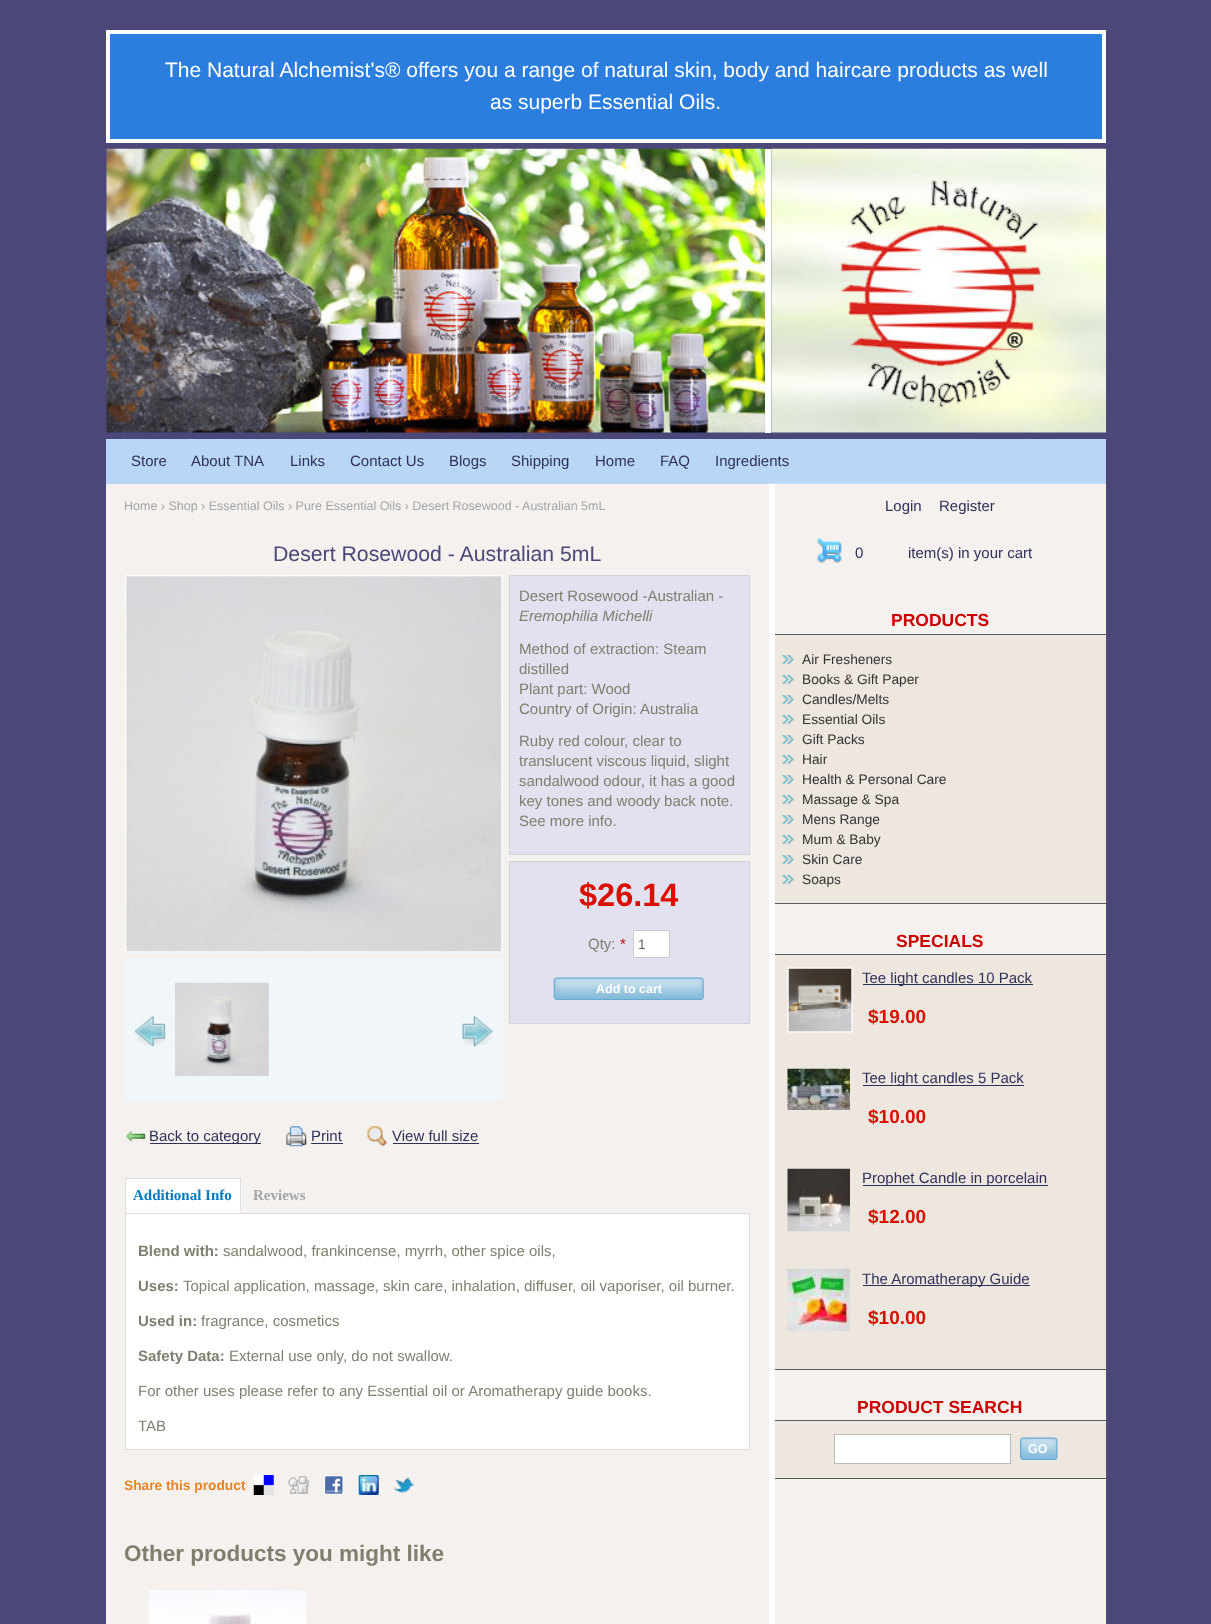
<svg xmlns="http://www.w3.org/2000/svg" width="1211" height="1624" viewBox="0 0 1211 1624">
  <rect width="100%" height="100%" fill="rgb(75,71,120)"/>
  <rect x="108" y="32" width="996" height="109" fill="rgb(43,125,222)" stroke="rgb(255,255,255)" stroke-width="4"/>
  <g font-family="Liberation Sans" font-size="21" fill="rgb(255,255,255)">
    <text x="165" y="77">The Natural Alchemist's® offers you a range of natural skin, body and haircare products as well</text>
    <text x="490" y="109">as superb Essential Oils.</text>
  </g>
  <image x="106" y="148" width="659" height="285" href="pic1.png"/>
  <rect x="765" y="149" width="6" height="284" fill="rgb(255,255,255)"/>
  <image x="771" y="148" width="336" height="285" href="pic2.png"/>
  <rect x="106" y="439" width="1000" height="45" fill="rgb(185,214,248)"/>
  <g font-family="Liberation Sans" font-size="15" fill="rgb(48,49,89)">
    <text x="131" y="466">Store</text>
    <text x="191" y="466">About TNA</text>
    <text x="290" y="466">Links</text>
    <text x="350" y="466">Contact Us</text>
    <text x="449" y="466">Blogs</text>
    <text x="511" y="466">Shipping</text>
    <text x="595" y="466">Home</text>
    <text x="660" y="466">FAQ</text>
    <text x="715" y="466">Ingredients</text>
  </g>
  <image x="768" y="483" width="339" height="1141" href="pic3.png"/>
  <rect x="106" y="484" width="663" height="1140" fill="rgb(245,241,238)"/>
  <text x="124" y="510" font-family="Liberation Sans" font-size="12.5" fill="rgb(165,165,165)">Home › Shop › Essential Oils › Pure Essential Oils › Desert Rosewood - Australian 5mL</text>
  <text x="273" y="561" font-family="Liberation Sans" font-size="21.25" fill="rgb(75,71,120)">Desert Rosewood - Australian 5mL</text>
  <image x="125" y="575" width="378" height="378" href="pic4.png"/>
  <rect x="125" y="958" width="378" height="143" fill="rgb(240,246,249)"/>
  <image x="134" y="1016" width="32" height="31" href="pic5.png"/>
  <image x="175" y="982" width="94" height="94" href="pic6.png"/>
  <image x="462" y="1016" width="31" height="31" href="pic7.png"/>
  <rect x="509.5" y="575.5" width="240" height="279" fill="rgb(225,225,240)" stroke="rgb(208,211,216)"/>
  <text x="519" y="601" font-family="Liberation Sans" font-size="15" fill="rgb(127,126,111)">Desert Rosewood -Australian -</text>
  <text x="519" y="621" font-family="Liberation Sans" font-size="15" font-style="italic" fill="rgb(127,126,111)">Eremophilia Michelli</text>
  <g font-family="Liberation Sans" font-size="15" fill="rgb(127,126,111)">
    <text>
      <tspan x="519" y="654">Method of extraction: Steam</tspan>
      <tspan x="519" y="674">distilled</tspan>
      <tspan x="519" y="694">Plant part: Wood</tspan>
      <tspan x="519" y="714">Country of Origin: Australia</tspan>
    </text>
    <text>
      <tspan x="519" y="746">Ruby red colour, clear to</tspan>
      <tspan x="519" y="766">translucent viscous liquid, slight</tspan>
      <tspan x="519" y="786">sandalwood odour, it has a good</tspan>
      <tspan x="519" y="806">key tones and woody back note.</tspan>
      <tspan x="519" y="826">See more info.</tspan>
    </text>
  </g>
  <rect x="509.5" y="861.5" width="240" height="162" fill="rgb(225,225,240)" stroke="rgb(208,211,216)"/>
  <text x="579" y="906" font-family="Liberation Sans" font-size="32.5" font-weight="bold" fill="rgb(218,15,0)">$26.14</text>
  <text x="588" y="949" font-family="Liberation Sans" font-size="15" fill="rgb(127,126,111)">Qty:</text>
  <text x="620" y="949" font-family="Liberation Sans" font-size="15" fill="rgb(204,0,0)">*</text>
  <rect x="633.5" y="930.5" width="36" height="27" fill="rgb(255,255,255)" stroke="rgb(204,204,204)"/>
  <text x="638" y="949" font-family="Liberation Sans" font-size="13.75" fill="rgb(102,102,102)">1</text>
  <image x="553" y="977" width="151" height="23" href="pic8.png"/>
  <text x="596" y="993" font-family="Liberation Sans" font-size="12.5" font-weight="bold" fill="rgb(255,255,255)">Add to cart</text>
  <image x="126" y="1131" width="20" height="11" href="pic9.png"/>
  <rect x="150" y="1143" width="111" height="1" fill="rgb(48,49,89)"/>
  <text x="149" y="1141" font-family="Liberation Sans" font-size="15" fill="rgb(48,49,89)">Back to category</text>
  <image x="286" y="1126" width="21" height="21" href="pic10.png"/>
  <text x="311" y="1141" font-family="Liberation Sans" font-size="15" fill="rgb(48,49,89)">Print</text>
  <rect x="311" y="1143" width="32" height="1" fill="rgb(48,49,89)"/>
  <image x="367" y="1126" width="20" height="21" href="pic11.png"/>
  <text x="392" y="1141" font-family="Liberation Sans" font-size="15" fill="rgb(48,49,89)">View full size</text>
  <rect x="393" y="1143" width="86" height="1" fill="rgb(48,49,89)"/>
  <rect x="125" y="1213" width="625" height="1" fill="rgb(222,222,222)"/>
  <rect x="126" y="1179" width="114" height="34" fill="rgb(255,255,255)"/>
  <text x="133" y="1200" font-family="Liberation Serif" font-size="15" font-weight="bold" fill="rgb(2,122,198)">Additional Info</text>
  <rect x="125" y="1178" width="116" height="1" fill="rgb(222,222,222)"/>
  <rect x="240" y="1178" width="1" height="35" fill="rgb(222,222,222)"/>
  <rect x="125" y="1211" width="116" height="1" fill="rgb(255,255,255)"/>
  <rect x="125" y="1178" width="1" height="35" fill="rgb(222,222,222)"/>
  <text x="253" y="1200" font-family="Liberation Serif" font-size="15" font-weight="bold" fill="rgb(165,165,165)">Reviews</text>
  <rect x="245" y="1178" width="70" height="1" fill="rgb(246,246,246)"/>
  <rect x="314" y="1178" width="1" height="33" fill="rgb(246,246,246)"/>
  <rect x="245" y="1178" width="1" height="33" fill="rgb(246,246,246)"/>
  <rect x="126" y="1214" width="623" height="235" fill="rgb(255,255,255)"/>
  <rect x="749" y="1214" width="1" height="236" fill="rgb(222,222,222)"/>
  <rect x="125" y="1449" width="625" height="1" fill="rgb(222,222,222)"/>
  <rect x="125" y="1214" width="1" height="236" fill="rgb(222,222,222)"/>
  <text x="138" y="1256" font-family="Liberation Sans" font-size="15" font-weight="bold" fill="rgb(127,126,111)">Blend with:</text>
  <text x="223" y="1256" font-family="Liberation Sans" font-size="15" fill="rgb(127,126,111)">sandalwood, frankincense, myrrh, other spice oils,</text>
  <text x="138" y="1291" font-family="Liberation Sans" font-size="15" font-weight="bold" fill="rgb(127,126,111)">Uses:</text>
  <text x="183" y="1291" font-family="Liberation Sans" font-size="15" fill="rgb(127,126,111)">Topical application, massage, skin care, inhalation, diffuser, oil vaporiser, oil burner.</text>
  <text x="138" y="1326" font-family="Liberation Sans" font-size="15" font-weight="bold" fill="rgb(127,126,111)">Used in:</text>
  <text x="201" y="1326" font-family="Liberation Sans" font-size="15" fill="rgb(127,126,111)">fragrance, cosmetics</text>
  <text x="138" y="1361" font-family="Liberation Sans" font-size="15" font-weight="bold" fill="rgb(127,126,111)">Safety Data:</text>
  <g font-family="Liberation Sans" font-size="15" fill="rgb(127,126,111)">
    <text x="229" y="1361">External use only, do not swallow.</text>
    <text x="138" y="1396">For other uses please refer to any Essential oil or Aromatherapy guide books.</text>
    <text x="138" y="1431">TAB</text>
  </g>
  <text x="124" y="1490" font-family="Liberation Sans" font-size="13.75" font-weight="bold" fill="rgb(232,132,36)">Share this product</text>
  <image x="253" y="1475" width="21" height="20" href="pic12.png"/>
  <image x="288" y="1476" width="21" height="18" href="pic13.png"/>
  <image x="323" y="1475" width="21" height="20" href="pic14.png"/>
  <image x="358" y="1475" width="21" height="20" href="pic15.png"/>
  <image x="393" y="1477" width="21" height="17" href="pic16.png"/>
  <text x="124" y="1561" font-family="Liberation Sans" font-size="22.5" font-weight="bold" fill="rgb(127,126,111)">Other products you might like</text>
  <image x="148" y="1590" width="159" height="34" href="pic17.png"/>
  <rect x="775" y="484" width="1" height="1007" fill="rgb(245,241,238)"/>
  <g font-family="Liberation Sans" font-size="15" fill="rgb(48,49,89)">
    <text x="885" y="511">Login</text>
    <text x="939" y="511">Register</text>
  </g>
  <image x="817" y="538" width="25" height="25" href="pic18.png"/>
  <g font-family="Liberation Sans" font-size="15" fill="rgb(48,49,89)">
    <text x="855" y="558">0</text>
    <text x="908" y="558">item(s) in your cart</text>
  </g>
  <text x="891" y="626" font-family="Liberation Sans" font-size="17.5" font-weight="bold" fill="rgb(204,0,0)">PRODUCTS</text>
  <rect x="775" y="635" width="331" height="268" fill="rgb(237,231,224)"/>
  <rect x="775" y="634" width="331" height="1" fill="rgb(89,90,94)"/>
  <rect x="775" y="903" width="331" height="1" fill="rgb(89,90,94)"/>
  <image x="782" y="655" width="12" height="9" href="pic19.png"/>
  <text x="802" y="664" font-family="Liberation Sans" font-size="13.75" fill="rgb(51,51,51)">Air Fresheners</text>
  <image x="782" y="675" width="12" height="9" href="pic19.png"/>
  <text x="802" y="684" font-family="Liberation Sans" font-size="13.75" fill="rgb(51,51,51)">Books &amp; Gift Paper</text>
  <image x="782" y="695" width="12" height="9" href="pic19.png"/>
  <text x="802" y="704" font-family="Liberation Sans" font-size="13.75" fill="rgb(51,51,51)">Candles/Melts</text>
  <image x="782" y="715" width="12" height="9" href="pic19.png"/>
  <text x="802" y="724" font-family="Liberation Sans" font-size="13.75" fill="rgb(51,51,51)">Essential Oils</text>
  <image x="782" y="735" width="12" height="9" href="pic19.png"/>
  <text x="802" y="744" font-family="Liberation Sans" font-size="13.75" fill="rgb(51,51,51)">Gift Packs</text>
  <image x="782" y="755" width="12" height="9" href="pic19.png"/>
  <text x="802" y="764" font-family="Liberation Sans" font-size="13.75" fill="rgb(51,51,51)">Hair</text>
  <image x="782" y="775" width="12" height="9" href="pic20.png"/>
  <text x="802" y="784" font-family="Liberation Sans" font-size="13.75" fill="rgb(51,51,51)">Health &amp; Personal Care</text>
  <image x="782" y="795" width="12" height="9" href="pic19.png"/>
  <text x="802" y="804" font-family="Liberation Sans" font-size="13.75" fill="rgb(51,51,51)">Massage &amp; Spa</text>
  <image x="782" y="815" width="12" height="9" href="pic19.png"/>
  <text x="802" y="824" font-family="Liberation Sans" font-size="13.75" fill="rgb(51,51,51)">Mens Range</text>
  <image x="782" y="835" width="12" height="9" href="pic19.png"/>
  <text x="802" y="844" font-family="Liberation Sans" font-size="13.75" fill="rgb(51,51,51)">Mum &amp; Baby</text>
  <image x="782" y="855" width="12" height="9" href="pic19.png"/>
  <text x="802" y="864" font-family="Liberation Sans" font-size="13.75" fill="rgb(51,51,51)">Skin Care</text>
  <image x="782" y="875" width="12" height="9" href="pic19.png"/>
  <text x="802" y="884" font-family="Liberation Sans" font-size="13.75" fill="rgb(51,51,51)">Soaps</text>
  <text x="896" y="947" font-family="Liberation Sans" font-size="17.5" font-weight="bold" fill="rgb(204,0,0)">SPECIALS</text>
  <rect x="775" y="955" width="331" height="414" fill="rgb(237,231,224)"/>
  <rect x="775" y="954" width="331" height="1" fill="rgb(89,90,94)"/>
  <rect x="775" y="1369" width="331" height="1" fill="rgb(89,90,94)"/>
  <image x="787" y="967" width="66" height="66" href="pic21.png"/>
  <rect x="863" y="984" width="170" height="1" fill="rgb(48,49,89)"/>
  <text x="862" y="983" font-family="Liberation Sans" font-size="15" fill="rgb(48,49,89)">Tee light candles 10 Pack</text>
  <text x="868" y="1023" font-family="Liberation Sans" font-size="19" font-weight="bold" fill="rgb(218,15,0)">$19.00</text>
  <image x="787" y="1068" width="63" height="42" href="pic22.png"/>
  <rect x="863" y="1085" width="161" height="1" fill="rgb(48,49,89)"/>
  <text x="862" y="1083" font-family="Liberation Sans" font-size="15" fill="rgb(48,49,89)">Tee light candles 5 Pack</text>
  <text x="868" y="1123" font-family="Liberation Sans" font-size="19" font-weight="bold" fill="rgb(218,15,0)">$10.00</text>
  <image x="787" y="1168" width="63" height="64" href="pic23.png"/>
  <rect x="863" y="1185" width="185" height="1" fill="rgb(48,49,89)"/>
  <text x="862" y="1183" font-family="Liberation Sans" font-size="15" fill="rgb(48,49,89)">Prophet Candle in porcelain</text>
  <text x="868" y="1223" font-family="Liberation Sans" font-size="19" font-weight="bold" fill="rgb(218,15,0)">$12.00</text>
  <image x="787" y="1268" width="63" height="64" href="pic24.png"/>
  <rect x="863" y="1285" width="167" height="1" fill="rgb(48,49,89)"/>
  <text x="862" y="1284" font-family="Liberation Sans" font-size="15" fill="rgb(48,49,89)">The Aromatherapy Guide</text>
  <text x="868" y="1324" font-family="Liberation Sans" font-size="19" font-weight="bold" fill="rgb(218,15,0)">$10.00</text>
  <text x="857" y="1413" font-family="Liberation Sans" font-size="17.5" font-weight="bold" fill="rgb(204,0,0)">PRODUCT SEARCH</text>
  <rect x="775" y="1421" width="331" height="57" fill="rgb(237,231,224)"/>
  <rect x="775" y="1420" width="331" height="1" fill="rgb(89,90,94)"/>
  <rect x="775" y="1478" width="331" height="1" fill="rgb(89,90,94)"/>
  <rect x="834.5" y="1434.5" width="176" height="29" fill="rgb(255,255,255)" stroke="rgb(187,187,187)"/>
  <image x="1020" y="1437" width="38" height="23" href="pic25.png"/>
  <text x="1028" y="1453" font-family="Liberation Sans" font-size="12.5" font-weight="bold" fill="rgb(255,255,255)">GO</text>
</svg>
